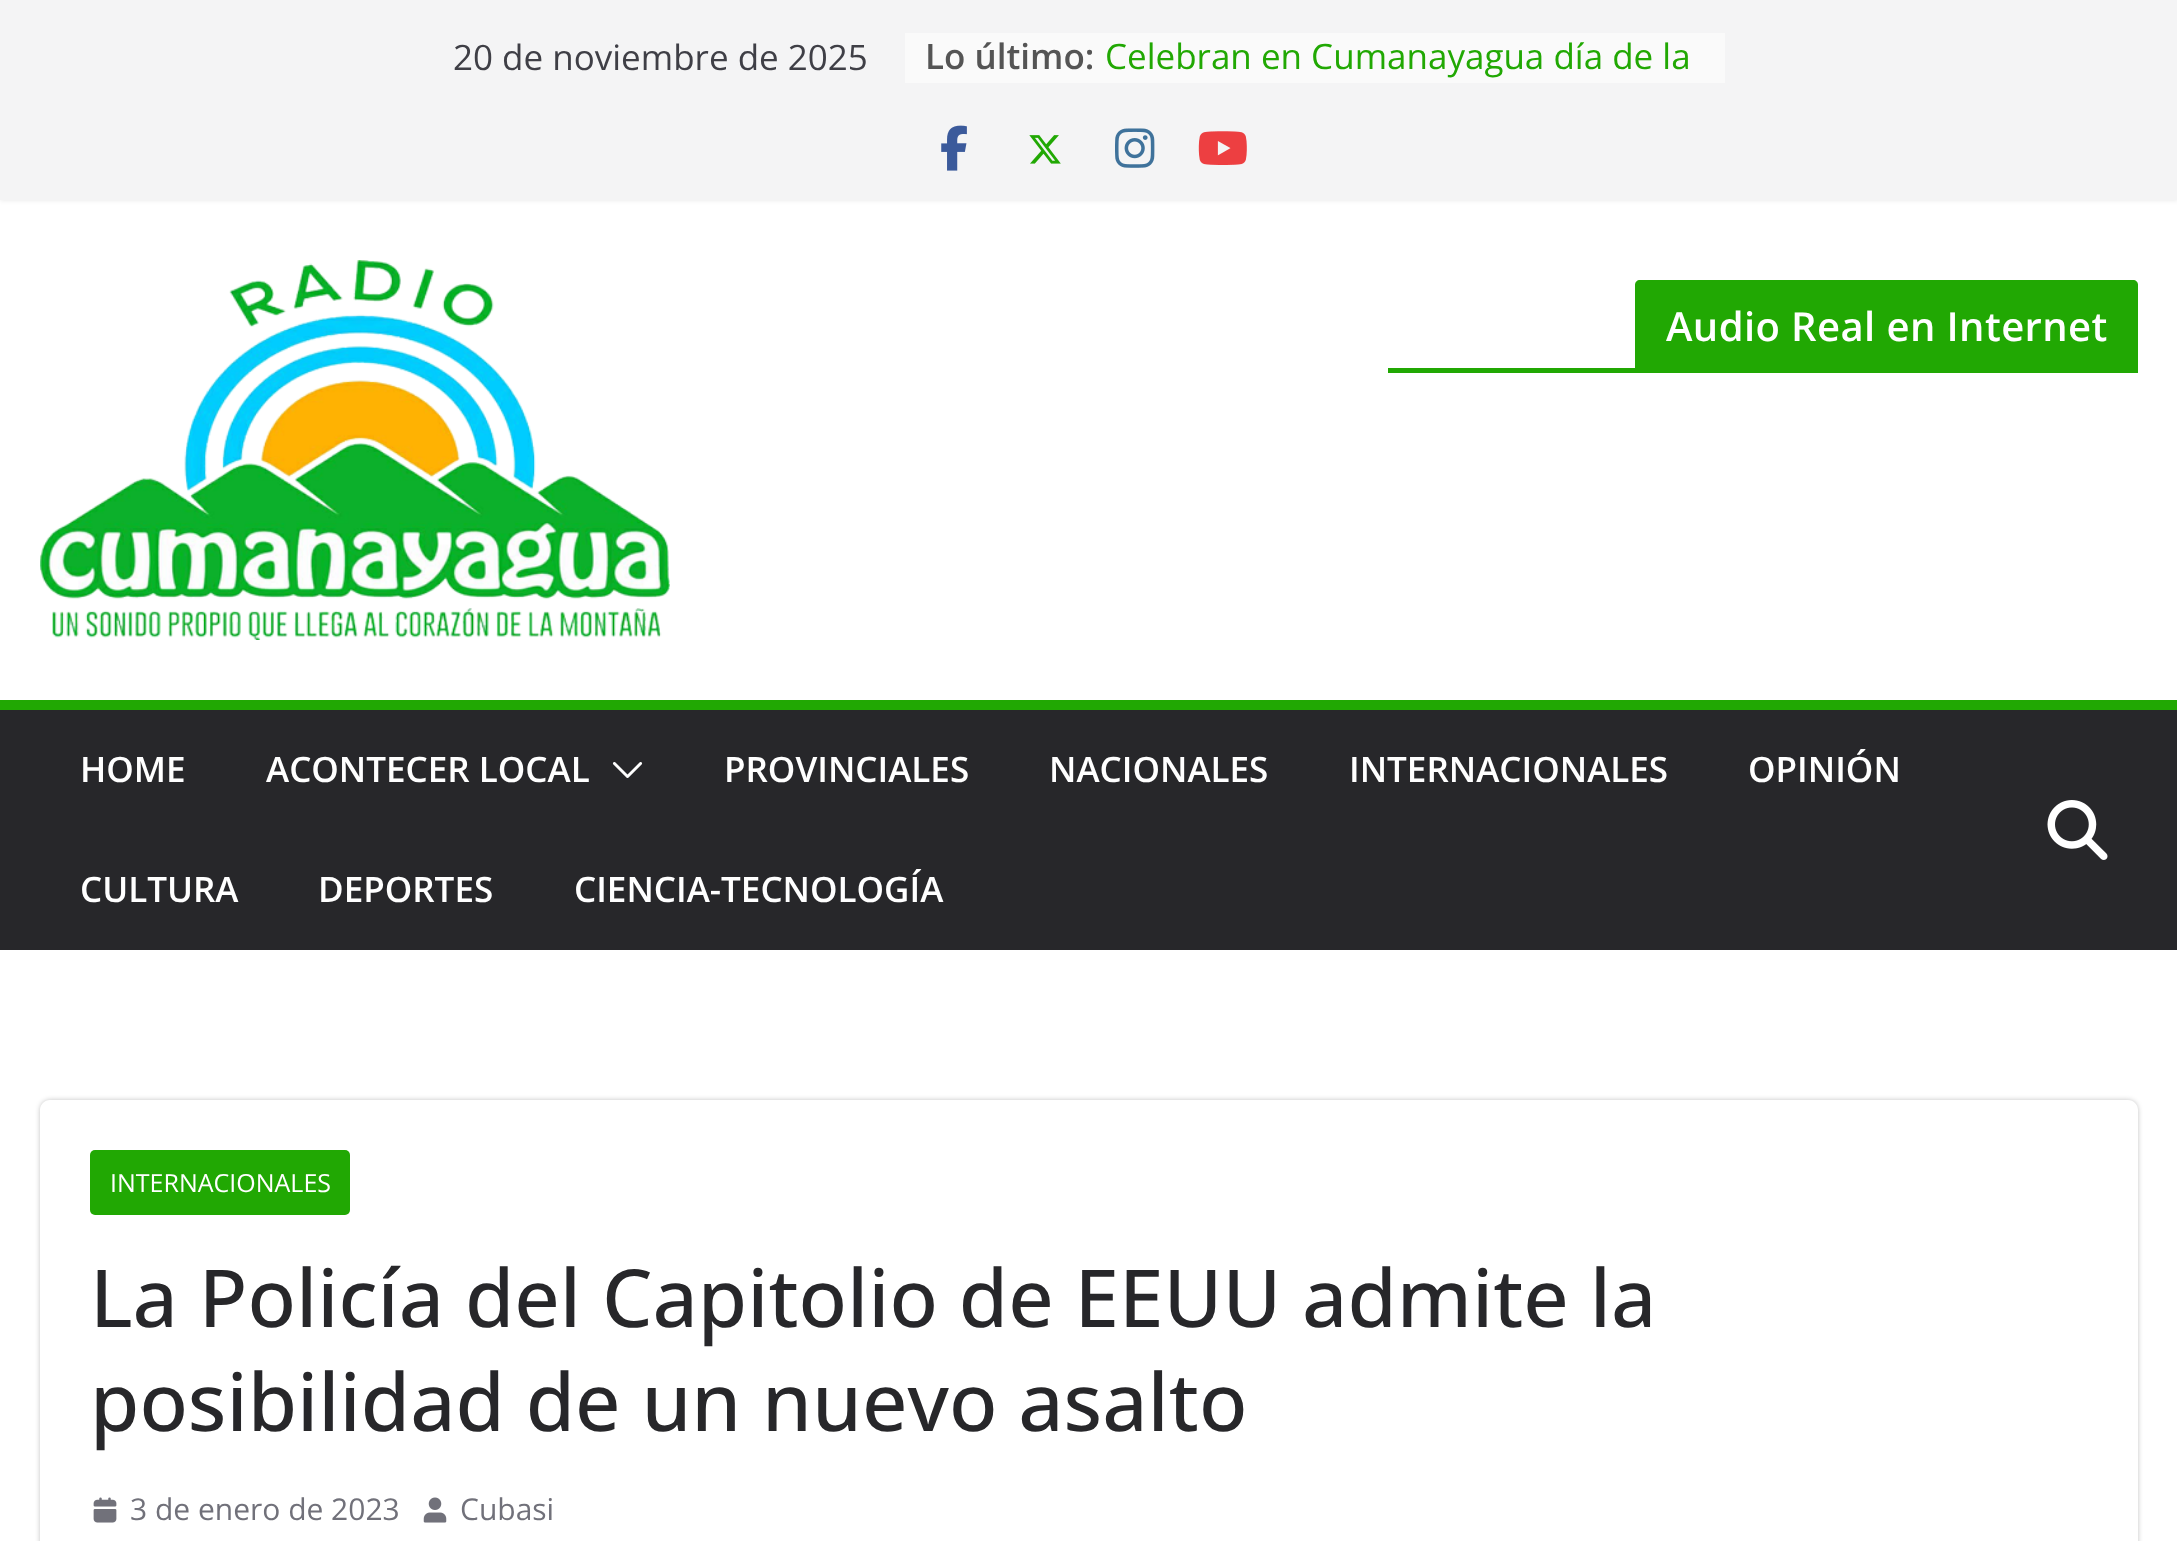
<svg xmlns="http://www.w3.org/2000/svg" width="2177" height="1541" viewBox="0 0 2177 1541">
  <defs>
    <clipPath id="clip1"><path d="M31 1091H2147V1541H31ZM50 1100H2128C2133.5 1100 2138 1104.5 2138 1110V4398C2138 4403.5 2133.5 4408 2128 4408H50C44.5 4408 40 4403.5 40 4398V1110C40 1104.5 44.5 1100 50 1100Z" clip-rule="evenodd"/></clipPath>
  </defs>
  <rect width="100%" height="100%" fill="rgb(255,255,255)"/>
  <rect x="0" y="0" width="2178" height="200" fill="rgba(0,0,0,0.1)" filter="blur(2.5px)"/>
  <rect x="0" y="0" width="2177" height="200" fill="rgb(244,244,245)"/>
  <text x="453" y="70" font-family="Open Sans" font-size="35" fill="rgb(63,63,70)">20 de noviembre de 2025</text>
  <rect x="905" y="33" width="820" height="50" fill="rgb(250,250,250)"/>
  <text x="925" y="69" font-family="Open Sans" font-size="35" font-weight="600" fill="rgb(85,85,85)">Lo último:</text>
  <text x="1105" y="69" font-family="Open Sans" font-size="35" fill="rgb(33,168,3)">Celebran en Cumanayagua día de la</text>
  <image x="941" y="125" width="26" height="46" href="pic1.png"/>
  <image x="1029" y="135" width="32" height="29" href="pic2.png"/>
  <image x="1115" y="128" width="40" height="40" href="pic3.png"/>
  <image x="1198" y="131" width="49" height="34" href="pic4.png"/>
  <image x="40" y="260" width="630" height="380" href="pic5.png"/>
  <rect x="1388" y="368" width="750" height="5" fill="rgb(33,168,3)"/>
  <path d="M1640 280H2133C2136 280 2138 282 2138 285V368H1635V285C1635 282 1637 280 1640 280Z" fill="rgb(33,168,3)"/>
  <text x="1666" y="341" font-family="Open Sans" font-size="40" font-weight="600" letter-spacing="0.4" fill="rgb(255,255,255)">Audio Real en Internet</text>
  <rect x="0" y="710" width="2177" height="240" fill="rgb(39,39,42)"/>
  <rect x="0" y="700" width="2177" height="10" fill="rgb(33,168,3)"/>
  <g font-family="Open Sans" font-size="35" font-weight="600" fill="rgb(255,255,255)">
    <text x="80" y="782">HOME</text>
    <text x="266" y="782">ACONTECER LOCAL</text>
  </g>
  <image x="612" y="762" width="31" height="16" href="pic6.png"/>
  <g font-family="Open Sans" font-size="35" font-weight="600" fill="rgb(255,255,255)">
    <text x="724" y="782">PROVINCIALES</text>
    <text x="1049" y="782">NACIONALES</text>
    <text x="1349" y="782">INTERNACIONALES</text>
    <text x="1748" y="782">OPINIÓN</text>
    <text x="80" y="902">CULTURA</text>
    <text x="318" y="902">DEPORTES</text>
    <text x="574" y="902">CIENCIA-TECNOLOGÍA</text>
  </g>
  <image x="2047" y="800" width="61" height="60" href="pic7.png"/>
  <g clip-path="url(#clip1)">
    <rect x="40" y="1100" width="2098" height="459" rx="10" fill="rgba(0,0,0,0.24)" filter="blur(2.5px)"/>
  </g>
  <rect x="90" y="1150" width="260" height="65" rx="5" fill="rgb(33,168,3)"/>
  <text x="110" y="1192" font-family="Open Sans" font-size="25" fill="rgb(255,255,255)">INTERNACIONALES</text>
  <g font-family="Open Sans" font-size="80" font-weight="500" fill="rgb(39,39,42)">
    <text>
      <tspan x="90" y="1327">La Policía del Capitolio de EEUU admite la</tspan>
      <tspan x="90" y="1431">posibilidad de un nuevo asalto</tspan>
    </text>
  </g>
  <image x="93" y="1497" width="24" height="26" href="pic8.png"/>
  <text x="130" y="1520" font-family="Open Sans" font-size="30" fill="rgb(113,113,122)">3 de enero de 2023</text>
  <image x="423" y="1497" width="24" height="26" href="pic9.png"/>
  <text x="460" y="1520" font-family="Open Sans" font-size="30" fill="rgb(113,113,122)">Cubasi</text>
</svg>
